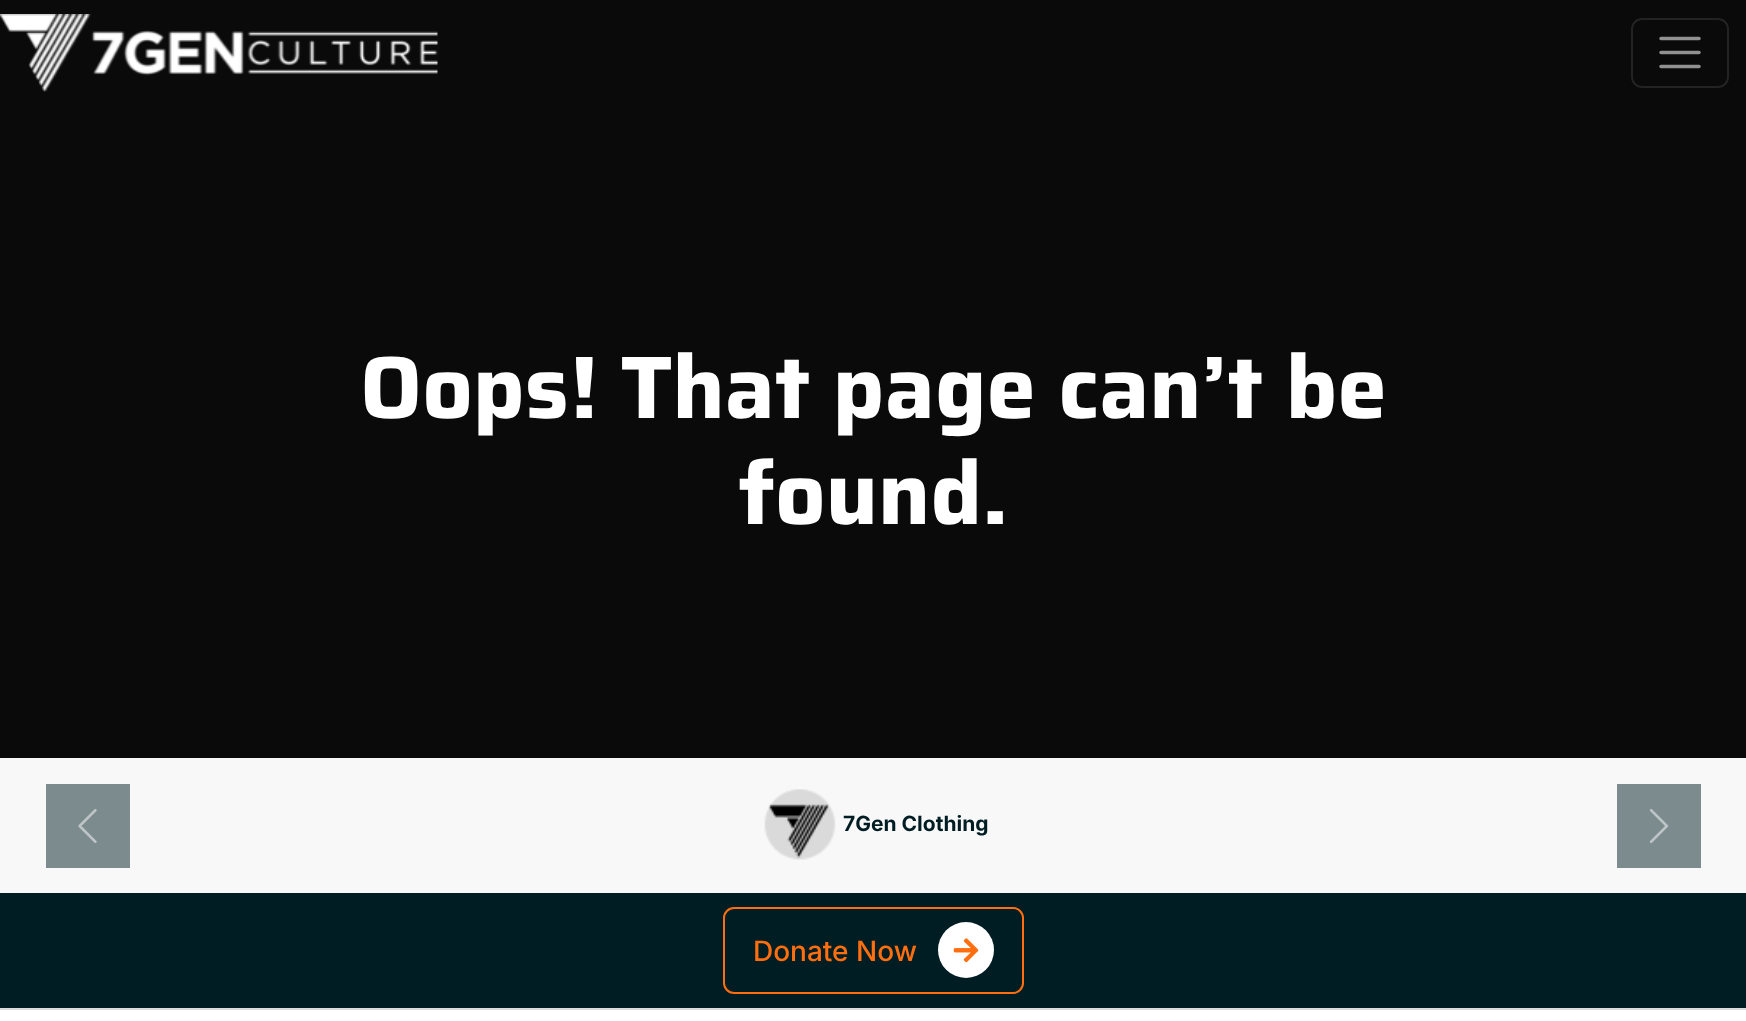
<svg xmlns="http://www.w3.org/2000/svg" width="1746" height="1021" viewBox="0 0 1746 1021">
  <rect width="100%" height="100%" fill="rgb(255,255,255)"/>
  <rect x="0" y="0" width="1746" height="758" fill="rgb(10,10,10)"/>
  <image x="0" y="14" width="438" height="78" href="pic1.png"/>
  <rect x="1632" y="19" width="96" height="68" rx="10" fill="none" stroke="rgb(35,35,35)" stroke-width="2"/>
  <path d="M1661 38.5H1699M1661 52.5H1699M1661 66.5H1699" fill="none" stroke="rgb(145,145,145)" stroke-width="3.5" stroke-linecap="round"/>
  <g font-family="Saira" font-size="88.5" font-weight="bold" fill="rgb(255,255,255)">
    <text x="360" y="418">Oops! That page can’t be</text>
    <text x="738" y="524">found.</text>
  </g>
  <rect x="0" y="758" width="1746" height="135" fill="rgb(248,248,249)"/>
  <rect x="46" y="784" width="84" height="84" fill="rgb(124,139,142)"/>
  <image x="78" y="809" width="19" height="34" href="pic2.png"/>
  <image x="764" y="789" width="72" height="71" href="pic3.png"/>
  <text x="843" y="831" font-family="Inter" font-size="21" font-weight="bold" fill="rgb(0,29,35)">7Gen Clothing</text>
  <rect x="1617" y="784" width="84" height="84" fill="rgb(124,139,142)"/>
  <image x="1649" y="809" width="20" height="34" href="pic4.png"/>
  <rect x="0" y="893" width="1746" height="115" fill="rgb(0,29,35)"/>
  <rect x="0" y="1008" width="1746" height="2" fill="rgb(221,221,221)"/>
  <rect x="724" y="908" width="299" height="85" rx="10" fill="none" stroke="rgb(255,111,15)" stroke-width="2"/>
  <text x="753" y="961" font-family="Inter" font-size="28" font-weight="500" fill="rgb(255,111,15)">Donate Now</text>
  <circle cx="966" cy="950" r="28" fill="rgb(255,255,255)"/>
  <image x="953" y="938" width="26" height="25" href="pic5.png"/>
</svg>
